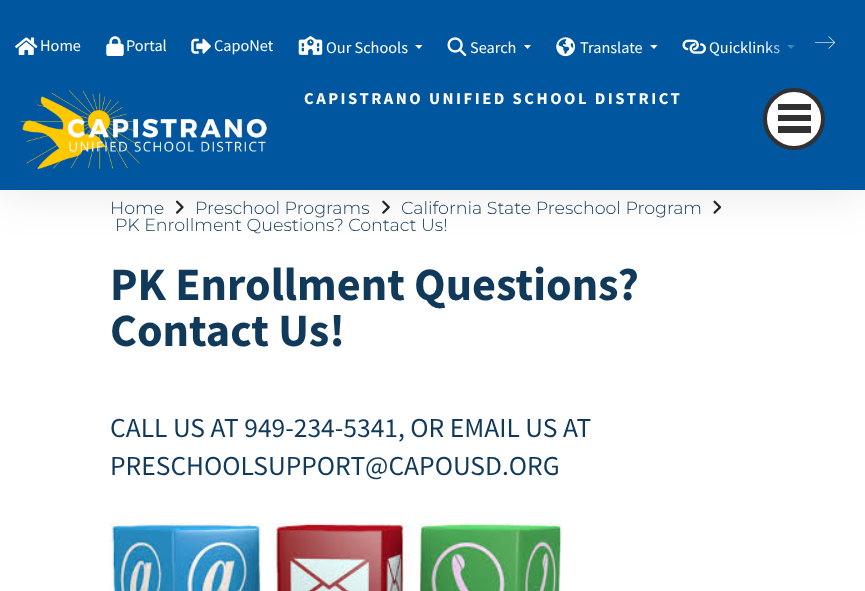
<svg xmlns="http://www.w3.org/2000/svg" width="865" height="591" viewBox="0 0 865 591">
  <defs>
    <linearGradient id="g1" gradientUnits="userSpaceOnUse" x1="763" y1="43" x2="850" y2="43"><stop offset="0" stop-color="rgb(0,87,159)" stop-opacity="0"/><stop offset="0.44" stop-color="rgb(0,87,159)"/></linearGradient>
  </defs>
  <rect width="100%" height="100%" fill="rgb(255,255,255)"/>
  <image x="175" y="200" width="9" height="14" href="pic10.png"/>
  <image x="382" y="200" width="8" height="14" href="pic11.png"/>
  <image x="713" y="200" width="9" height="14" href="pic12.png"/>
  <rect x="0" y="0" width="865" height="190" fill="rgba(0,0,0,0.1)" filter="blur(25px)"/>
  <rect x="0" y="0" width="865" height="190" fill="rgb(0,87,159)"/>
  <image x="15" y="37" width="23" height="18" href="pic1.png"/>
  <text x="40" y="51" font-family="Source Sans Pro" font-size="16.25" fill="rgb(255,255,255)">Home</text>
  <image x="106" y="36" width="18" height="20" href="pic2.png"/>
  <text x="126" y="51" font-family="Source Sans Pro" font-size="16.25" fill="rgb(255,255,255)">Portal</text>
  <image x="191" y="38" width="20" height="16" href="pic3.png"/>
  <text x="214" y="51" font-family="Source Sans Pro" font-size="16.25" fill="rgb(255,255,255)">CapoNet</text>
  <image x="298" y="36" width="25" height="19" href="pic4.png"/>
  <text x="326" y="53" font-family="Source Sans Pro" font-size="16.25" fill="rgb(255,255,255)">Our Schools</text>
  <path d="M415 45H422.5L419 49Z" fill="rgb(255,255,255)"/>
  <image x="447" y="37" width="20" height="20" href="pic5.png"/>
  <text x="470" y="53" font-family="Source Sans Pro" font-size="16.25" fill="rgb(255,255,255)">Search</text>
  <path d="M524 45H531L527.5 49Z" fill="rgb(255,255,255)"/>
  <image x="556" y="37" width="19" height="20" href="pic6.png"/>
  <text x="580" y="53" font-family="Source Sans Pro" font-size="16.25" fill="rgb(255,255,255)">Translate</text>
  <path d="M650 45H657.5L654 49Z" fill="rgb(255,255,255)"/>
  <image x="682" y="39" width="24" height="15" href="pic7.png"/>
  <text x="709" y="53" font-family="Source Sans Pro" font-size="16.25" fill="rgb(255,255,255)">Quicklinks</text>
  <path d="M787.5 45H795L791 49Z" fill="rgb(255,255,255)"/>
  <rect x="764" y="41" width="31" height="13" fill="url(#g1)"/>
  <image x="815" y="36" width="20" height="13" href="pic8.png"/>
  <image x="20" y="90" width="247" height="80" href="pic9.png"/>
  <text x="304" y="104" font-family="Source Sans Pro" font-size="16.6" font-weight="bold" letter-spacing="2.5" fill="rgb(255,255,255)">CAPISTRANO UNIFIED SCHOOL DISTRICT</text>
  <circle cx="794" cy="119" r="29" fill="rgb(255,255,255)" stroke="rgb(49,49,49)" stroke-width="4"/>
  <rect x="778" y="104" width="33" height="6" fill="rgb(49,49,49)"/>
  <rect x="778" y="115" width="33" height="6" fill="rgb(49,49,49)"/>
  <rect x="778" y="126" width="33" height="7" fill="rgb(49,49,49)"/>
  <g font-family="Montserrat" font-size="17.5" font-weight="300" fill="rgb(17,57,90)">
    <text x="110" y="214">Home</text>
    <text x="195" y="214">Preschool Programs</text>
    <text x="401" y="214">California State Preschool Program</text>
    <text x="115" y="231">PK Enrollment Questions? Contact Us!</text>
  </g>
  <g font-family="Source Sans Pro" font-size="46.25" font-weight="bold" fill="rgb(17,57,90)">
    <text>
      <tspan x="110" y="300">PK Enrollment Questions?</tspan>
      <tspan x="110" y="346">Contact Us!</tspan>
    </text>
  </g>
  <g font-family="Source Sans Pro" font-size="27.5" fill="rgb(17,57,90)">
    <text>
      <tspan x="110" y="437">CALL US AT 949-234-5341, OR EMAIL US AT</tspan>
      <tspan x="110" y="475">PRESCHOOLSUPPORT@CAPOUSD.ORG</tspan>
    </text>
  </g>
  <image x="110" y="522" width="453" height="69" href="pic13.png"/>
</svg>
